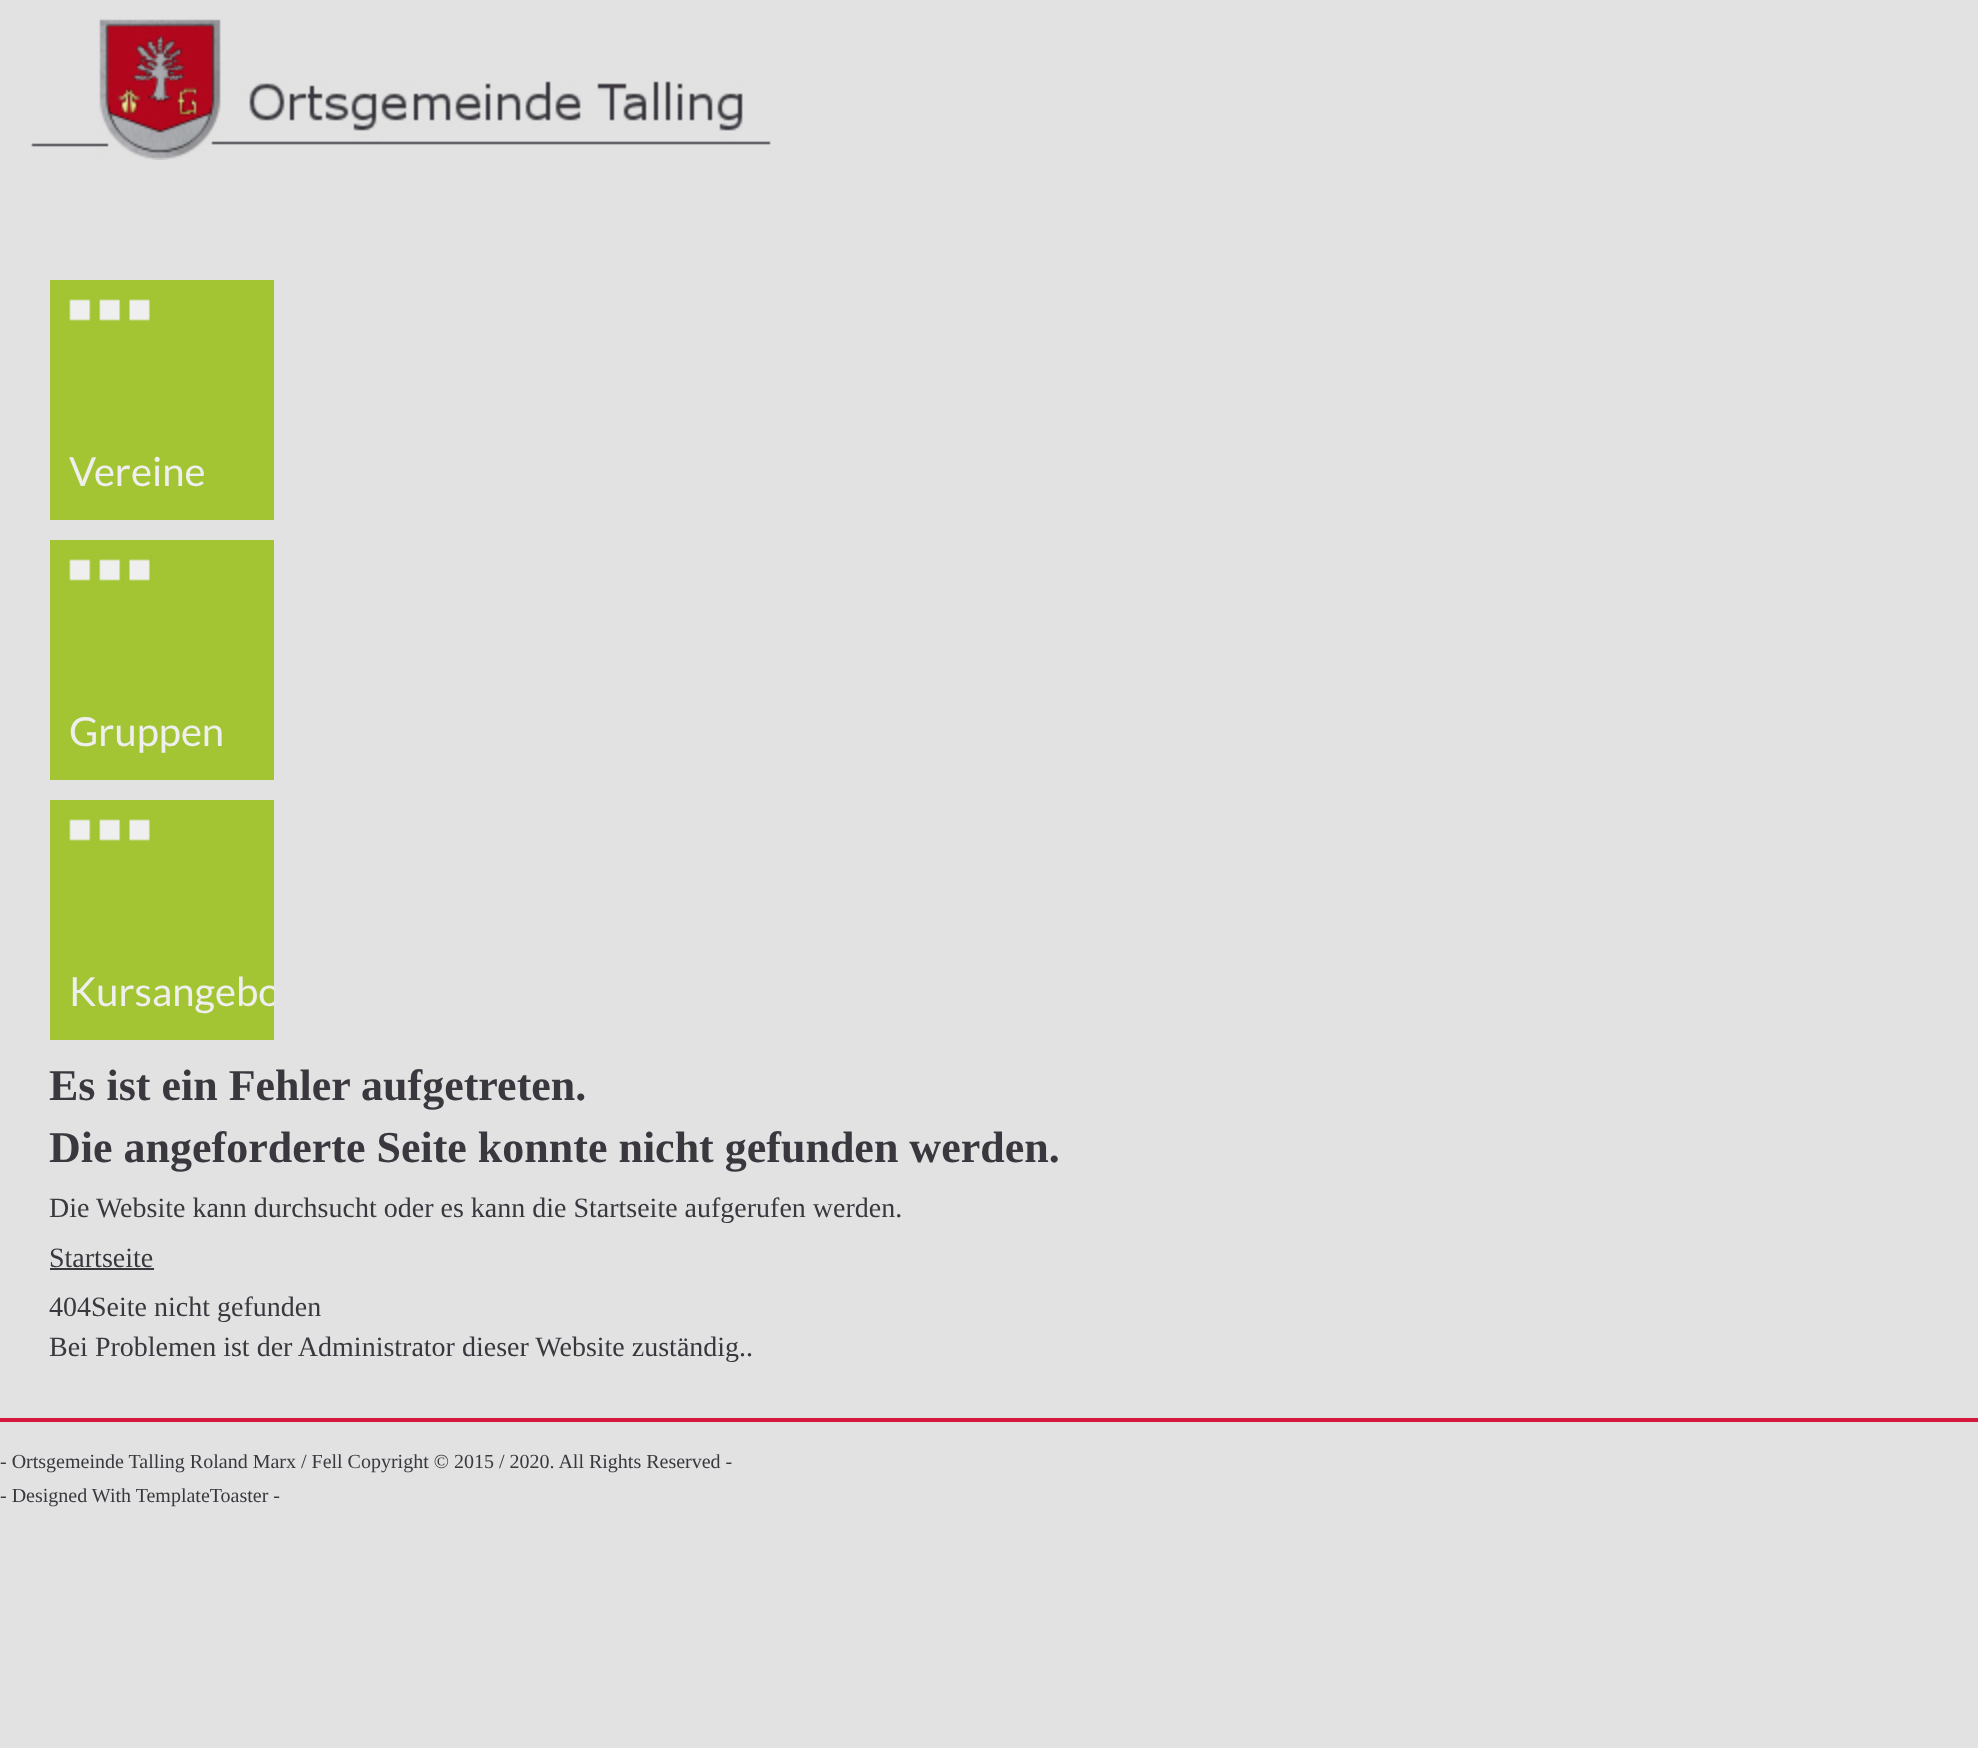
<svg xmlns="http://www.w3.org/2000/svg" width="1978" height="1748" viewBox="0 0 1978 1748">
  <defs>
    <clipPath id="clip1"><rect x="50" y="280" width="224" height="760"/></clipPath>
  </defs>
  <rect width="100%" height="100%" fill="rgb(226,226,226)"/>
  <image x="31" y="19" width="740" height="141" href="pic1.png"/>
  <image x="50" y="280" width="224" height="240" href="pic2.png"/>
  <text x="69" y="486" font-family="Lato" font-size="40" fill="rgb(239,239,239)">Vereine</text>
  <image x="50" y="540" width="224" height="240" href="pic2.png"/>
  <text x="69" y="746" font-family="Lato" font-size="40" fill="rgb(239,239,239)">Gruppen</text>
  <image x="50" y="800" width="224" height="240" href="pic2.png"/>
  <g clip-path="url(#clip1)">
    <text x="69" y="1006" font-family="Lato" font-size="40" fill="rgb(239,239,239)">Kursangebo</text>
  </g>
  <g font-family="Liberation Serif" font-size="44" font-weight="bold" fill="rgb(58,56,62)">
    <text>
      <tspan x="49" y="1100">Es ist ein Fehler aufgetreten.</tspan>
      <tspan x="49" y="1162">Die angeforderte Seite konnte nicht gefunden werden.</tspan>
    </text>
  </g>
  <g font-family="Liberation Serif" font-size="28" fill="rgb(58,56,62)">
    <text>
      <tspan x="49" y="1217">Die Website kann durchsucht oder es kann die Startseite aufgerufen werden.</tspan>
      <tspan x="49" y="1267">Startseite</tspan>
    </text>
  </g>
  <rect x="50" y="1268" width="104" height="2" fill="rgb(58,56,62)"/>
  <g font-family="Liberation Serif" font-size="28" fill="rgb(58,56,62)">
    <text>
      <tspan x="49" y="1316">404Seite nicht gefunden</tspan>
      <tspan x="49" y="1356">Bei Problemen ist der Administrator dieser Website zuständig..</tspan>
    </text>
  </g>
  <rect x="0" y="1418" width="1978" height="4" fill="rgb(213,24,62)"/>
  <g font-family="Liberation Serif" font-size="20" fill="rgb(58,56,62)">
    <text>
      <tspan x="0" y="1468">- Ortsgemeinde Talling Roland Marx / Fell Copyright © 2015 / 2020. All Rights Reserved -</tspan>
      <tspan x="0" y="1502">- Designed With TemplateToaster -</tspan>
    </text>
  </g>
</svg>
